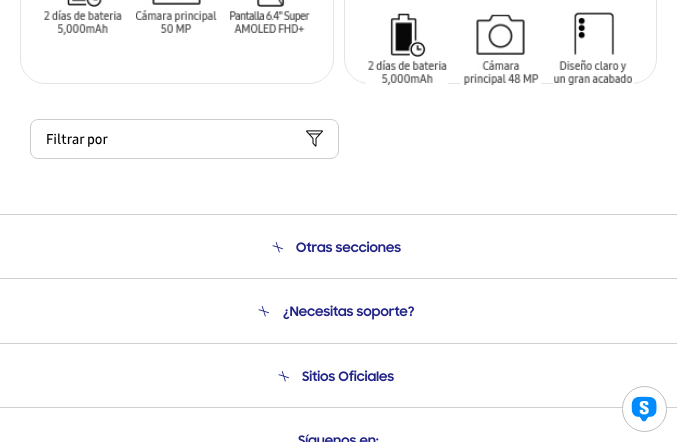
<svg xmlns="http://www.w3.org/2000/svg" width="677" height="442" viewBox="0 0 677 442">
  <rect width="100%" height="100%" fill="rgb(255,255,255)"/>
  <rect x="20.5" y="-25.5" width="313" height="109" rx="24.5" fill="none" stroke="rgb(228,228,228)"/>
  <image x="44" y="0" width="78" height="35" href="pic1.png"/>
  <image x="136" y="0" width="81" height="33" href="pic2.png"/>
  <image x="230" y="0" width="80" height="33" href="pic3.png"/>
  <rect x="344.5" y="-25.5" width="312" height="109" rx="24.5" fill="none" stroke="rgb(228,228,228)"/>
  <image x="366" y="13" width="82" height="72" href="pic4.png"/>
  <image x="460" y="14" width="81" height="71" href="pic5.png"/>
  <image x="553" y="12" width="81" height="73" href="pic6.png"/>
  <image x="306" y="130" width="17" height="17" href="pic7.png"/>
  <rect x="30.5" y="119.5" width="308" height="39" rx="7.5" fill="none" stroke="rgb(204,204,204)"/>
  <text x="46" y="144" font-family="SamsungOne" font-size="14" font-weight="600" fill="rgb(0,0,0)">Filtrar por</text>
  <rect x="0" y="407" width="677" height="1" fill="rgb(208,208,208)"/>
  <rect x="622" y="386" width="45" height="46" rx="22.5" fill="rgb(255,255,255)"/>
  <image x="631" y="396" width="26" height="26" href="pic8.png"/>
  <rect x="622.5" y="386.5" width="44" height="45" rx="22" fill="none" stroke="rgb(190,190,190)"/>
  <rect x="0" y="214" width="677" height="1" fill="rgb(208,208,208)"/>
  <text x="278" y="251" transform="rotate(-45 278 251)" font-family="DejaVu Sans" font-size="8" font-weight="bold" fill="rgb(34,36,136)">╳</text>
  <image x="296" y="241" width="105" height="12" href="pic9.png"/>
  <rect x="0" y="278" width="677" height="1" fill="rgb(208,208,208)"/>
  <text x="264" y="315" transform="rotate(-45 264 315)" font-family="DejaVu Sans" font-size="8" font-weight="bold" fill="rgb(34,36,136)">╳</text>
  <image x="283" y="305" width="131" height="15" href="pic10.png"/>
  <rect x="0" y="343" width="677" height="1" fill="rgb(208,208,208)"/>
  <text x="284" y="380" transform="rotate(-45 284 380)" font-family="DejaVu Sans" font-size="8" font-weight="bold" fill="rgb(34,36,136)">╳</text>
  <image x="302" y="370" width="92" height="12" href="pic11.png"/>
  <image x="298" y="434" width="81" height="8" href="pic12.png"/>
</svg>
